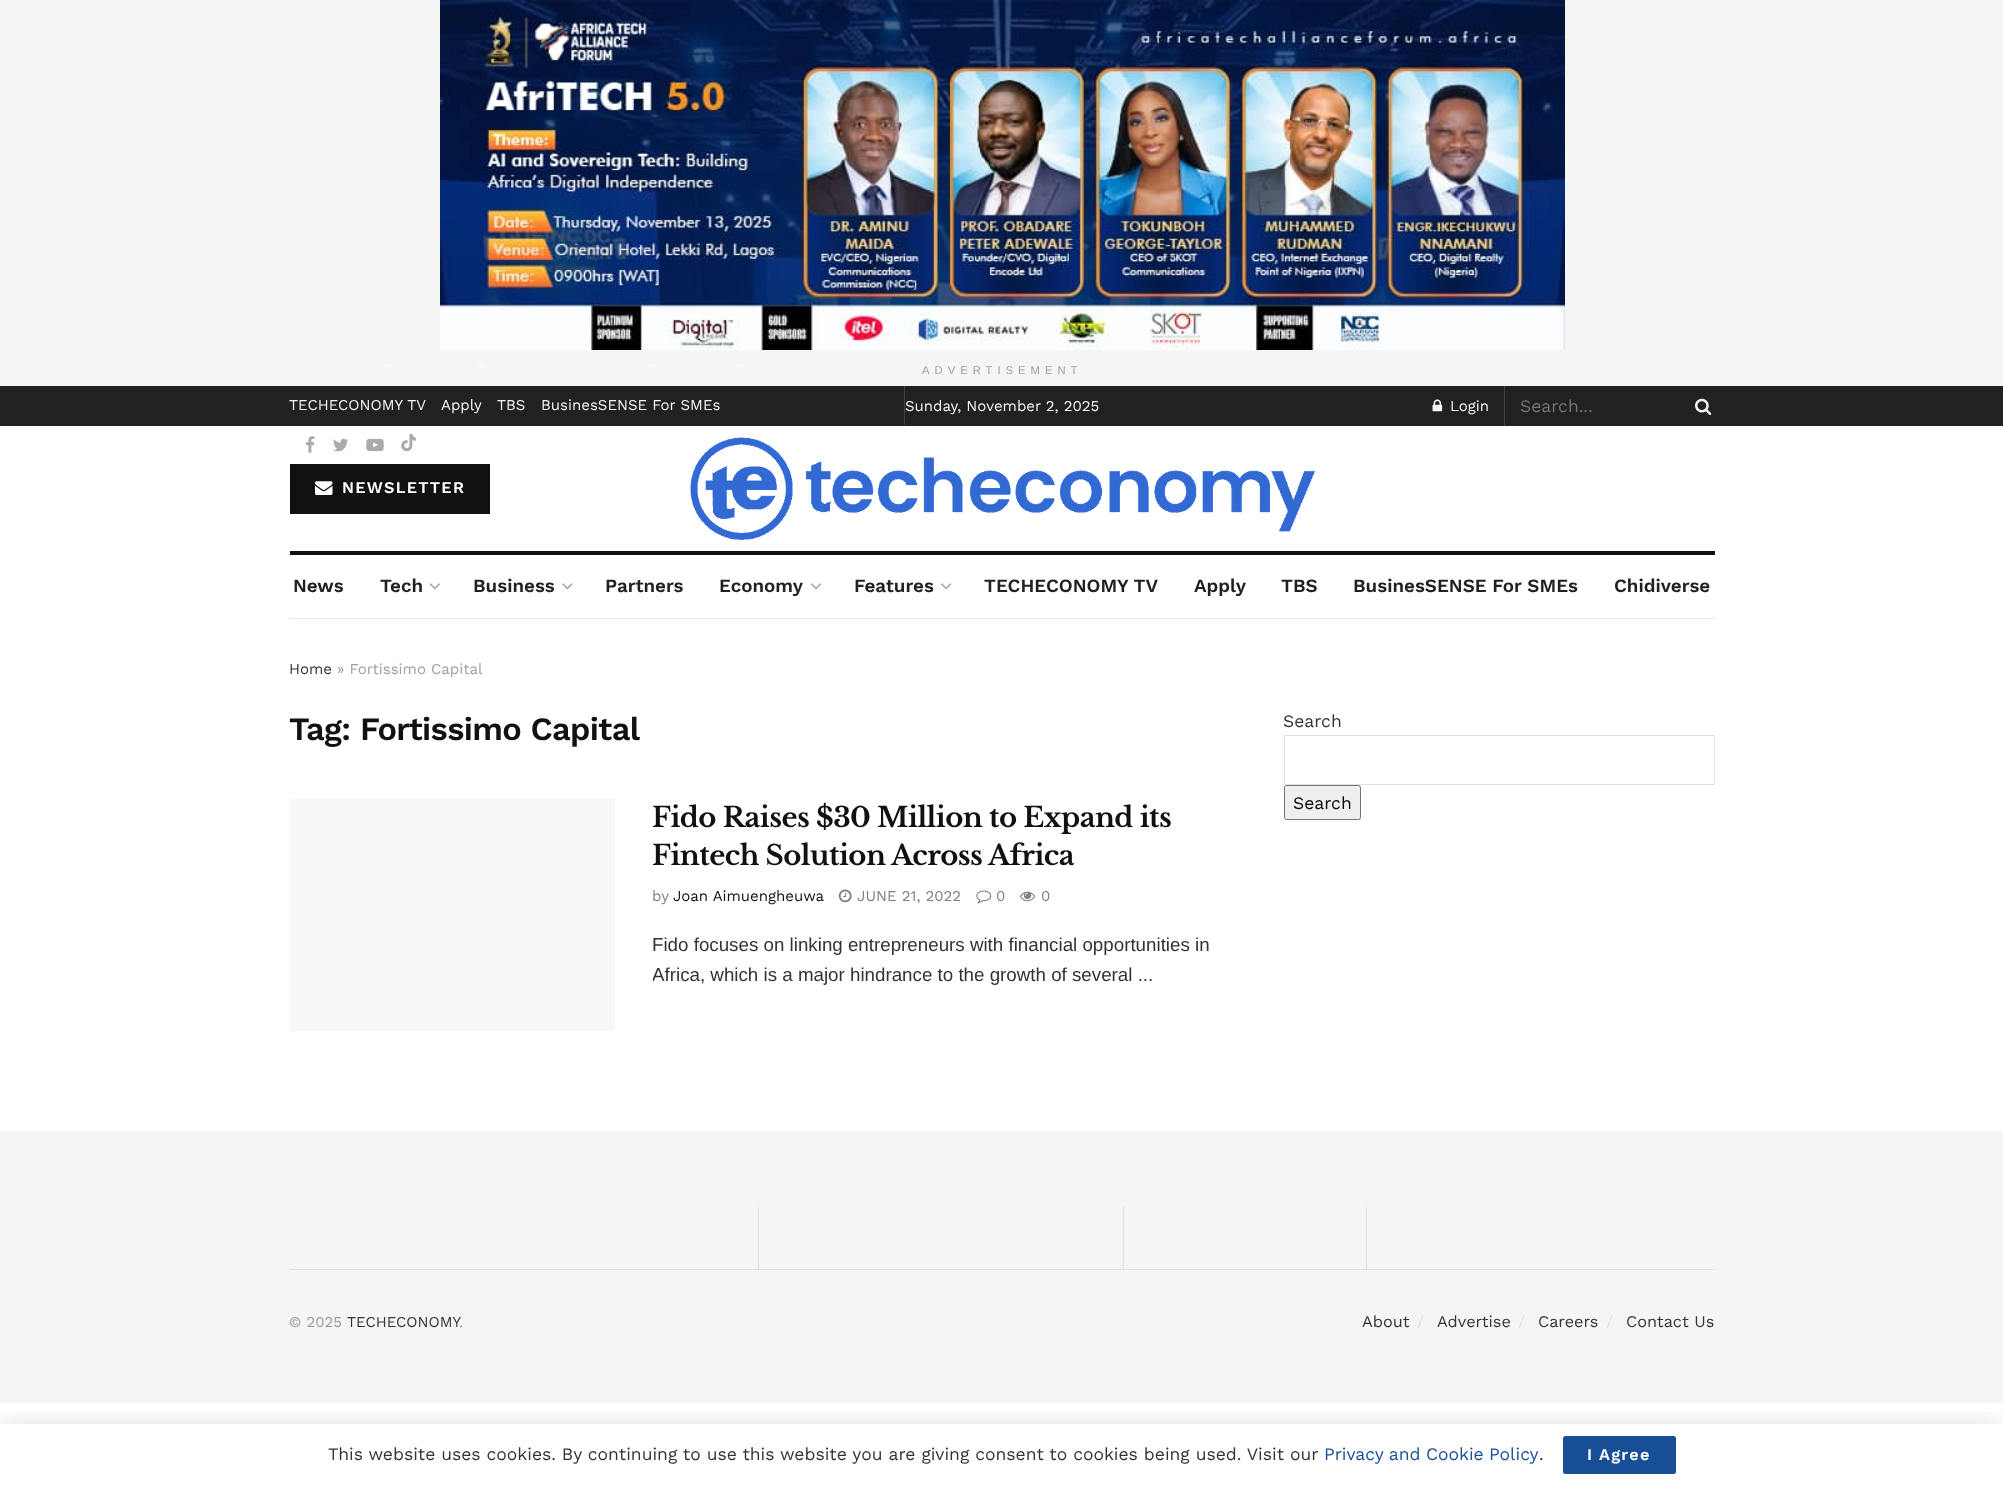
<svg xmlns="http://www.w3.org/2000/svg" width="2003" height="1486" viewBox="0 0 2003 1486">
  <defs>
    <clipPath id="clip1"><rect x="653" y="799" width="575" height="190"/></clipPath>
    <clipPath id="clip2"><rect x="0" y="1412" width="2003" height="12"/></clipPath>
  </defs>
  <rect width="100%" height="100%" fill="rgb(255,255,255)"/>
  <rect x="0" y="0" width="2003" height="386" fill="rgb(245,245,245)"/>
  <image x="440" y="0" width="1125" height="350" href="pic1.png"/>
  <text x="922" y="374" font-family="Liberation Sans" font-size="11.25" letter-spacing="5" fill="rgb(160,160,160)">ADVERTISEMENT</text>
  <rect x="0" y="386" width="2003" height="40" fill="rgb(33,33,33)"/>
  <rect x="904" y="386" width="1" height="39" fill="rgba(255,255,255,0.15)"/>
  <image x="385" y="363" width="7" height="4" href="pic2.png"/>
  <image x="477" y="363" width="8" height="4" href="pic3.png"/>
  <image x="647" y="363" width="8" height="4" href="pic3.png"/>
  <image x="737" y="363" width="8" height="4" href="pic3.png"/>
  <g font-family="Work Sans" font-size="15" fill="rgb(245,245,245)">
    <text x="289" y="410">TECHECONOMY TV</text>
    <text x="441" y="410">Apply</text>
    <text x="497" y="410">TBS</text>
    <text x="541" y="410">BusinesSENSE For SMEs</text>
  </g>
  <image x="305" y="436" width="10" height="17" href="pic4.png"/>
  <image x="333" y="438" width="15" height="14" href="pic5.png"/>
  <image x="366" y="438" width="18" height="14" href="pic6.png"/>
  <image x="401" y="434" width="15" height="17" href="pic7.png"/>
  <text x="905" y="411" font-family="Work Sans" font-size="15" fill="rgb(245,245,245)">Sunday, November 2, 2025</text>
  <rect x="1504" y="386" width="1" height="40" fill="rgb(66,66,66)"/>
  <image x="1432" y="399" width="11" height="13" href="pic8.png"/>
  <text x="1450" y="411" font-family="Work Sans" font-size="15" fill="rgb(245,245,245)">Login</text>
  <text x="1520" y="412" font-family="Work Sans" font-size="17.5" fill="rgb(117,117,117)">Search...</text>
  <image x="1695" y="398" width="17" height="17" href="pic9.png"/>
  <rect x="290" y="464" width="200" height="50" fill="rgb(17,17,17)"/>
  <image x="315" y="481" width="18" height="14" href="pic10.png"/>
  <text x="342" y="493" font-family="Work Sans" font-size="16.25" font-weight="600" letter-spacing="1.25" fill="rgb(255,255,255)">NEWSLETTER</text>
  <image x="690" y="437" width="625" height="103" href="pic11.png"/>
  <rect x="290" y="551" width="1425" height="4" fill="rgb(17,17,17)"/>
  <rect x="290" y="618" width="1425" height="1" fill="rgb(232,232,232)"/>
  <g font-family="Work Sans" font-size="18.75" font-weight="600" fill="rgb(33,33,33)">
    <text x="293" y="592">News</text>
    <text x="380" y="592">Tech</text>
  </g>
  <image x="429" y="583" width="11" height="7" href="pic12.png"/>
  <text x="473" y="592" font-family="Work Sans" font-size="18.75" font-weight="600" fill="rgb(33,33,33)">Business</text>
  <image x="562" y="583" width="11" height="7" href="pic13.png"/>
  <g font-family="Work Sans" font-size="18.75" font-weight="600" fill="rgb(33,33,33)">
    <text x="605" y="592">Partners</text>
    <text x="719" y="592">Economy</text>
  </g>
  <image x="810" y="583" width="12" height="7" href="pic14.png"/>
  <text x="854" y="592" font-family="Work Sans" font-size="18.75" font-weight="600" fill="rgb(33,33,33)">Features</text>
  <image x="940" y="583" width="12" height="7" href="pic14.png"/>
  <g font-family="Work Sans" font-size="18.75" font-weight="600" fill="rgb(33,33,33)">
    <text x="984" y="592">TECHECONOMY TV</text>
    <text x="1194" y="592">Apply</text>
    <text x="1281" y="592">TBS</text>
    <text x="1353" y="592">BusinesSENSE For SMEs</text>
    <text x="1614" y="592">Chidiverse</text>
  </g>
  <text x="289" y="674" font-family="Work Sans" font-size="15" fill="rgb(51,51,51)">Home</text>
  <text x="337" y="674" font-family="Work Sans" font-size="15" fill="rgb(160,160,160)">» Fortissimo Capital</text>
  <text x="289" y="740" font-family="Work Sans" font-size="32.5" font-weight="600" letter-spacing="-0.65" fill="rgb(17,17,17)">Tag: Fortissimo Capital</text>
  <rect x="290" y="799" width="325" height="232" fill="rgb(247,247,247)"/>
  <g font-family="Libre Baskerville" font-size="27.5" font-weight="bold" letter-spacing="-0.55" fill="rgb(17,17,17)">
    <text>
      <tspan x="652" y="827">Fido Raises $30 Million to Expand its</tspan>
      <tspan x="652" y="865">Fintech Solution Across Africa</tspan>
    </text>
  </g>
  <text x="652" y="901" font-family="Work Sans" font-size="15" fill="rgb(128,128,128)">by</text>
  <text x="673" y="901" font-family="Work Sans" font-size="15" fill="rgb(17,17,17)">Joan Aimuengheuwa</text>
  <image x="838" y="889" width="14" height="14" href="pic15.png"/>
  <text x="857" y="901" font-family="Work Sans" font-size="15" fill="rgb(128,128,128)">JUNE 21, 2022</text>
  <image x="976" y="890" width="16" height="14" href="pic16.png"/>
  <text x="996" y="901" font-family="Work Sans" font-size="15" fill="rgb(128,128,128)">0</text>
  <image x="1020" y="891" width="15" height="11" href="pic17.png"/>
  <text x="1041" y="901" font-family="Work Sans" font-size="15" fill="rgb(128,128,128)">0</text>
  <text x="652" y="951" font-family="Liberation Sans" font-size="18.75" fill="rgb(51,51,51)">Fido focuses on linking entrepreneurs with financial opportunities in</text>
  <g clip-path="url(#clip1)">
    <text x="652" y="981" font-family="Liberation Sans" font-size="18.75" fill="rgb(51,51,51)">Africa, which is a major hindrance to the growth of several ...</text>
  </g>
  <text x="1283" y="727" font-family="Work Sans" font-size="17.5" fill="rgb(51,51,51)">Search</text>
  <rect x="1284.5" y="735.5" width="430" height="49" fill="none" stroke="rgb(224,224,224)"/>
  <rect x="1284.5" y="785.5" width="76" height="34" rx="2" fill="rgb(239,239,239)" stroke="rgb(118,118,118)"/>
  <text x="1293" y="809" font-family="Work Sans" font-size="17.5" fill="rgb(0,0,0)">Search</text>
  <rect x="0" y="1131" width="2003" height="272" fill="rgb(245,245,245)"/>
  <rect x="758" y="1206" width="1" height="63" fill="rgb(224,224,224)"/>
  <rect x="1123" y="1206" width="1" height="63" fill="rgb(224,224,224)"/>
  <rect x="1366" y="1206" width="1" height="63" fill="rgb(224,224,224)"/>
  <rect x="290" y="1269" width="1425" height="1" fill="rgb(224,224,224)"/>
  <text x="289" y="1327" font-family="Work Sans" font-size="15" fill="rgb(153,153,153)">© 2025</text>
  <text x="347" y="1327" font-family="Work Sans" font-size="15" fill="rgb(51,51,51)">TECHECONOMY</text>
  <text x="459" y="1327" font-family="Work Sans" font-size="15" fill="rgb(153,153,153)">.</text>
  <text x="1362" y="1327" font-family="Work Sans" font-size="16.25" fill="rgb(51,51,51)">About</text>
  <text x="1417" y="1327" font-family="Work Sans" font-size="16.25" fill="rgb(224,224,224)">/</text>
  <text x="1437" y="1327" font-family="Work Sans" font-size="16.25" fill="rgb(51,51,51)">Advertise</text>
  <text x="1518" y="1327" font-family="Work Sans" font-size="16.25" fill="rgb(224,224,224)">/</text>
  <text x="1538" y="1327" font-family="Work Sans" font-size="16.25" fill="rgb(51,51,51)">Careers</text>
  <text x="1606" y="1327" font-family="Work Sans" font-size="16.25" fill="rgb(224,224,224)">/</text>
  <text x="1626" y="1327" font-family="Work Sans" font-size="16.25" fill="rgb(51,51,51)">Contact Us</text>
  <g clip-path="url(#clip2)">
    <rect x="0" y="1426" width="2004" height="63" fill="rgba(0,0,0,0.15)" filter="blur(12.5px)"/>
  </g>
  <text x="328" y="1460" font-family="Work Sans" font-size="17.5" fill="rgb(51,51,51)">This website uses cookies. By continuing to use this website you are giving consent to cookies being used. Visit our</text>
  <text x="1324" y="1460" word-spacing="-0.5" font-family="Work Sans" font-size="17.5" fill="rgb(23,78,150)">Privacy and Cookie Policy</text>
  <text x="1539" y="1460" font-family="Work Sans" font-size="17.5" fill="rgb(51,51,51)">.</text>
  <rect x="1563" y="1436" width="113" height="38" rx="2.5" fill="rgb(23,78,150)"/>
  <text x="1587" y="1460" font-family="Work Sans" font-size="16.25" font-weight="600" letter-spacing="1.25" fill="rgb(255,255,255)">I Agree</text>
</svg>
